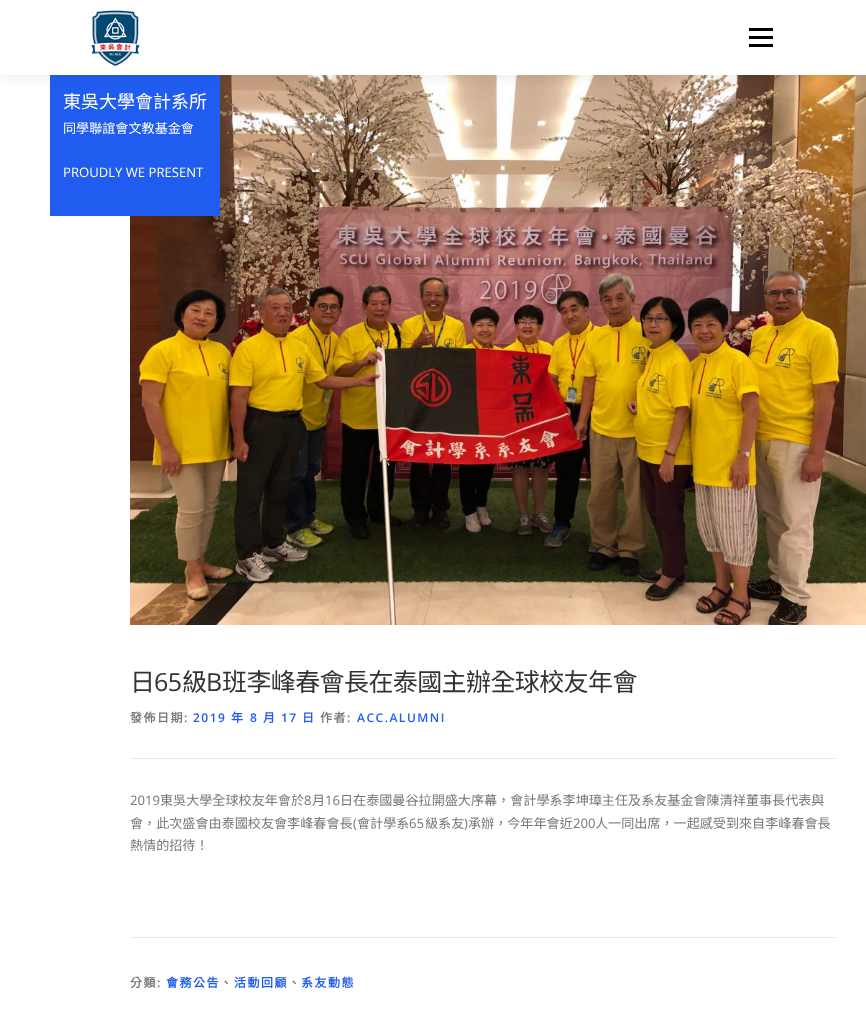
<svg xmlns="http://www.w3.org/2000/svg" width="866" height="1024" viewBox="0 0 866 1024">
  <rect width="100%" height="100%" fill="rgb(255,255,255)"/>
  <image x="130" y="75" width="736" height="550" href="pic2.png"/>
  <rect x="50" y="75" width="170" height="141" fill="rgb(32,92,239)"/>
  <rect x="0" y="5" width="866" height="75" fill="rgba(50,50,50,0.06)" filter="blur(5px)"/>
  <rect x="0" y="1" width="866" height="74" fill="rgb(255,255,255)"/>
  <image x="91" y="10" width="49" height="56" href="pic1.png"/>
  <rect x="749" y="36" width="24" height="3" fill="rgb(0,0,0)"/>
  <rect x="749" y="28" width="24" height="3" fill="rgb(0,0,0)"/>
  <rect x="749" y="44" width="24" height="3" fill="rgb(0,0,0)"/>
  <text x="63" y="108" font-family="Noto Sans CJK TC" font-size="18" fill="rgb(255,255,255)">東吳大學會計系所</text>
  <text x="63" y="133" font-family="Noto Sans CJK TC" font-size="13.1" fill="rgb(255,255,255)">同學聯誼會文教基金會</text>
  <text x="63" y="177" font-family="Open Sans" font-size="13.1" fill="rgb(255,255,255)">PROUDLY WE PRESENT</text>
  <text x="130" y="691" font-family="Noto Sans CJK TC" font-size="25" letter-spacing="-0.6" fill="rgb(51,51,51)">日</text>
  <text x="154" y="691" font-family="Open Sans" font-size="25" letter-spacing="-0.6" fill="rgb(51,51,51)">65</text>
  <text x="182" y="691" font-family="Noto Sans CJK TC" font-size="25" letter-spacing="-0.6" fill="rgb(51,51,51)">級</text>
  <text x="206" y="691" font-family="Open Sans" font-size="25" letter-spacing="-0.6" fill="rgb(51,51,51)">B</text>
  <text x="222" y="691" font-family="Noto Sans CJK TC" font-size="25" letter-spacing="-0.6" fill="rgb(51,51,51)">班李峰春會長在泰國主辦全球校友年會</text>
  <rect x="130" y="758" width="706" height="1" fill="rgb(233,233,233)"/>
  <text x="130" y="722" font-family="Noto Sans CJK TC" font-size="12" font-weight="bold" letter-spacing="1.5" fill="rgb(119,119,119)">發佈日期</text>
  <text x="184" y="722" font-family="Open Sans" font-size="12" font-weight="600" letter-spacing="1.5" fill="rgb(119,119,119)">:</text>
  <text x="193" y="722" font-family="Open Sans" font-size="12" font-weight="600" letter-spacing="1.5" fill="rgb(32,92,239)">2019</text>
  <text x="231" y="722" font-family="Noto Sans CJK TC" font-size="12" font-weight="bold" letter-spacing="1.5" fill="rgb(32,92,239)">年</text>
  <text x="250" y="722" font-family="Open Sans" font-size="12" font-weight="600" letter-spacing="1.5" fill="rgb(32,92,239)">8</text>
  <text x="263" y="722" font-family="Noto Sans CJK TC" font-size="12" font-weight="bold" letter-spacing="1.5" fill="rgb(32,92,239)">月</text>
  <text x="281" y="722" font-family="Open Sans" font-size="12" font-weight="600" letter-spacing="1.5" fill="rgb(32,92,239)">17</text>
  <text x="302" y="722" font-family="Noto Sans CJK TC" font-size="12" font-weight="bold" letter-spacing="1.5" fill="rgb(32,92,239)">日</text>
  <text x="320" y="722" font-family="Noto Sans CJK TC" font-size="12" font-weight="bold" letter-spacing="1.5" fill="rgb(119,119,119)">作者</text>
  <text x="347" y="722" font-family="Open Sans" font-size="12" font-weight="600" letter-spacing="1.5" fill="rgb(119,119,119)">:</text>
  <text x="357" y="722" font-family="Open Sans" font-size="12" font-weight="600" letter-spacing="1.5" fill="rgb(32,92,239)">ACC.ALUMNI</text>
  <text x="130" y="805" font-family="Open Sans" font-size="13.1" fill="rgb(119,119,119)">2019</text>
  <text x="160" y="805" font-family="Noto Sans CJK TC" font-size="13.1" fill="rgb(119,119,119)">東吳大學全球校友年會於</text>
  <text x="304" y="805" font-family="Open Sans" font-size="13.1" fill="rgb(119,119,119)">8</text>
  <text x="312" y="805" font-family="Noto Sans CJK TC" font-size="13.1" fill="rgb(119,119,119)">月</text>
  <text x="325" y="805" font-family="Open Sans" font-size="13.1" fill="rgb(119,119,119)">16</text>
  <g font-family="Noto Sans CJK TC" font-size="13.1" fill="rgb(119,119,119)">
    <text x="340" y="805">日在泰國曼谷拉開盛大序幕，會計學系李坤璋主任及系友基金會陳清祥董事長代表與</text>
    <text x="130" y="828">會，此次盛會由泰國校友會李峰春會長</text>
  </g>
  <text x="353" y="828" font-family="Open Sans" font-size="13.1" fill="rgb(119,119,119)">(</text>
  <text x="357" y="828" font-family="Noto Sans CJK TC" font-size="13.1" fill="rgb(119,119,119)">會計學系</text>
  <text x="409" y="828" font-family="Open Sans" font-size="13.1" fill="rgb(119,119,119)">65</text>
  <text x="425" y="828" font-family="Noto Sans CJK TC" font-size="13.1" fill="rgb(119,119,119)">級系友</text>
  <text x="464" y="828" font-family="Open Sans" font-size="13.1" fill="rgb(119,119,119)">)</text>
  <text x="468" y="828" font-family="Noto Sans CJK TC" font-size="13.1" fill="rgb(119,119,119)">承辦，今年年會近</text>
  <text x="573" y="828" font-family="Open Sans" font-size="13.1" fill="rgb(119,119,119)">200</text>
  <g font-family="Noto Sans CJK TC" font-size="13.1" fill="rgb(119,119,119)">
    <text x="595" y="828">人一同出席，一起感受到來自李峰春會長</text>
    <text x="130" y="850">熱情的招待！</text>
  </g>
  <rect x="130" y="937" width="706" height="1" fill="rgb(233,233,233)"/>
  <text x="130" y="987" font-family="Noto Sans CJK TC" font-size="12" font-weight="bold" letter-spacing="1.5" fill="rgb(119,119,119)">分類</text>
  <text x="157" y="987" font-family="Open Sans" font-size="12" font-weight="600" letter-spacing="1.5" fill="rgb(119,119,119)">:</text>
  <text x="166" y="987" font-family="Noto Sans CJK TC" font-size="12" font-weight="bold" letter-spacing="1.5" fill="rgb(32,92,239)">會務公告</text>
  <text x="220" y="987" font-family="Noto Sans CJK TC" font-size="12" font-weight="bold" letter-spacing="1.5" fill="rgb(119,119,119)">、</text>
  <text x="234" y="987" font-family="Noto Sans CJK TC" font-size="12" font-weight="bold" letter-spacing="1.5" fill="rgb(32,92,239)">活動回顧</text>
  <text x="288" y="987" font-family="Noto Sans CJK TC" font-size="12" font-weight="bold" letter-spacing="1.5" fill="rgb(119,119,119)">、</text>
  <text x="301" y="987" font-family="Noto Sans CJK TC" font-size="12" font-weight="bold" letter-spacing="1.5" fill="rgb(32,92,239)">系友動態</text>
</svg>
